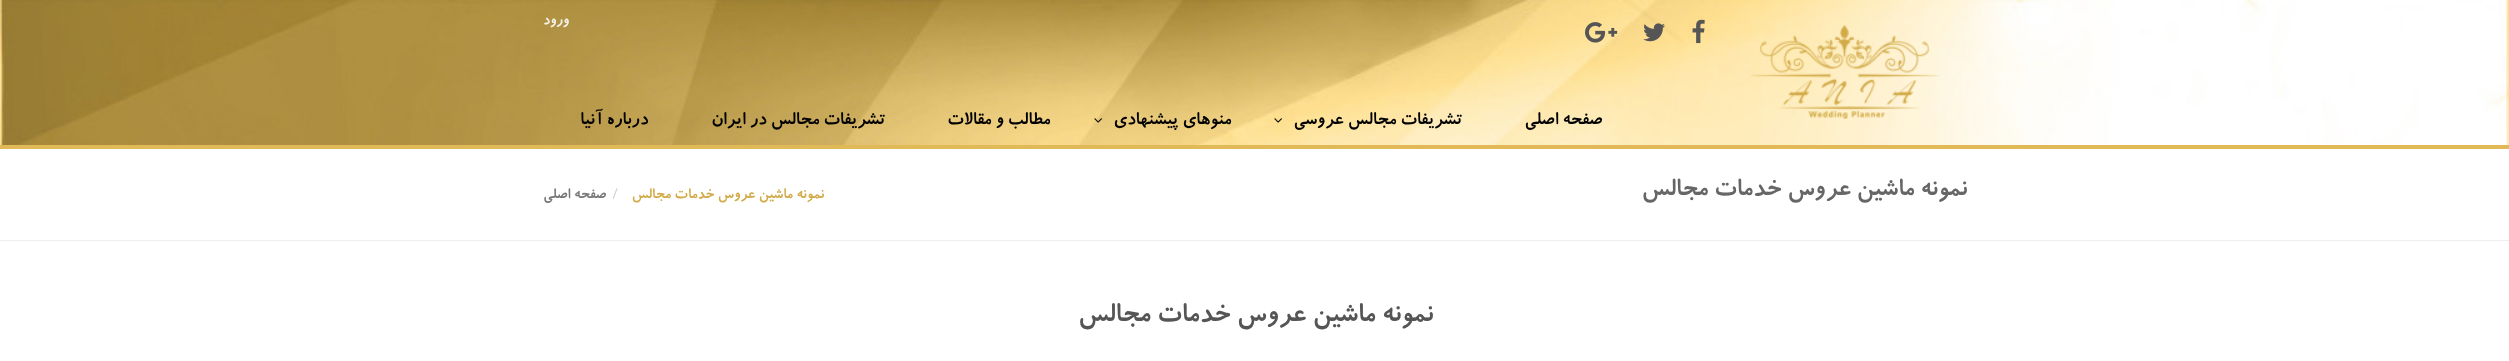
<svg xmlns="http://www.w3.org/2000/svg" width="2509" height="361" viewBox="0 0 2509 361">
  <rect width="100%" height="100%" fill="rgb(255,255,255)"/>
  <image x="0" y="0" width="2509" height="145" href="pic1.png"/>
  <rect x="0" y="145" width="2509" height="4" fill="rgb(225,185,87)"/>
  <image x="1749" y="25" width="192" height="94" href="pic2.png"/>
  <image x="1692" y="19" width="13" height="25" href="pic3.png"/>
  <image x="1643" y="23" width="22" height="19" href="pic4.png"/>
  <image x="1585" y="22" width="33" height="21" href="pic5.png"/>
  <text x="569" y="24" font-family="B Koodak" font-size="16.25" font-weight="bold" direction="rtl" fill="rgb(243,243,233)">ورود</text>
  <g font-family="B Koodak" font-size="20" font-weight="bold" direction="rtl" fill="rgb(0,0,0)">
    <text x="1602" y="124">صفحه اصلی</text>
    <text x="1462" y="124">تشریفات مجالس عروسی</text>
  </g>
  <image x="1274" y="118" width="8" height="5" href="pic6.png"/>
  <text x="1231" y="124" font-family="B Koodak" font-size="20" font-weight="bold" direction="rtl" fill="rgb(0,0,0)">منوهای پیشنهادی</text>
  <image x="1094" y="118" width="8" height="5" href="pic7.png"/>
  <g font-family="B Koodak" font-size="20" font-weight="bold" direction="rtl" fill="rgb(0,0,0)">
    <text x="1050" y="124">مطالب و مقالات</text>
    <text x="885" y="124">تشریفات مجالس در ایران</text>
    <text x="648" y="124">درباره آنیا</text>
  </g>
  <rect x="0" y="240" width="2509" height="1" fill="rgb(238,238,238)"/>
  <text x="1967" y="195" font-family="B Koodak" font-size="27.5" font-weight="bold" direction="rtl" fill="rgb(102,102,102)">نمونه ماشین عروس خدمات مجالس</text>
  <text x="824" y="198" font-family="B Koodak" font-size="16.25" font-weight="bold" direction="rtl" fill="rgb(210,171,72)">نمونه ماشین عروس خدمات مجالس</text>
  <text x="612" y="198" font-family="B Koodak" font-size="16.25" font-weight="bold" fill="rgb(204,204,204)">/</text>
  <text x="606" y="198" font-family="B Koodak" font-size="16.25" font-weight="bold" direction="rtl" fill="rgb(119,119,119)">صفحه اصلی</text>
  <text x="1433" y="321" font-family="B Koodak" font-size="30" font-weight="bold" direction="rtl" fill="rgb(85,85,85)">نمونه ماشین عروس خدمات مجالس</text>
</svg>
